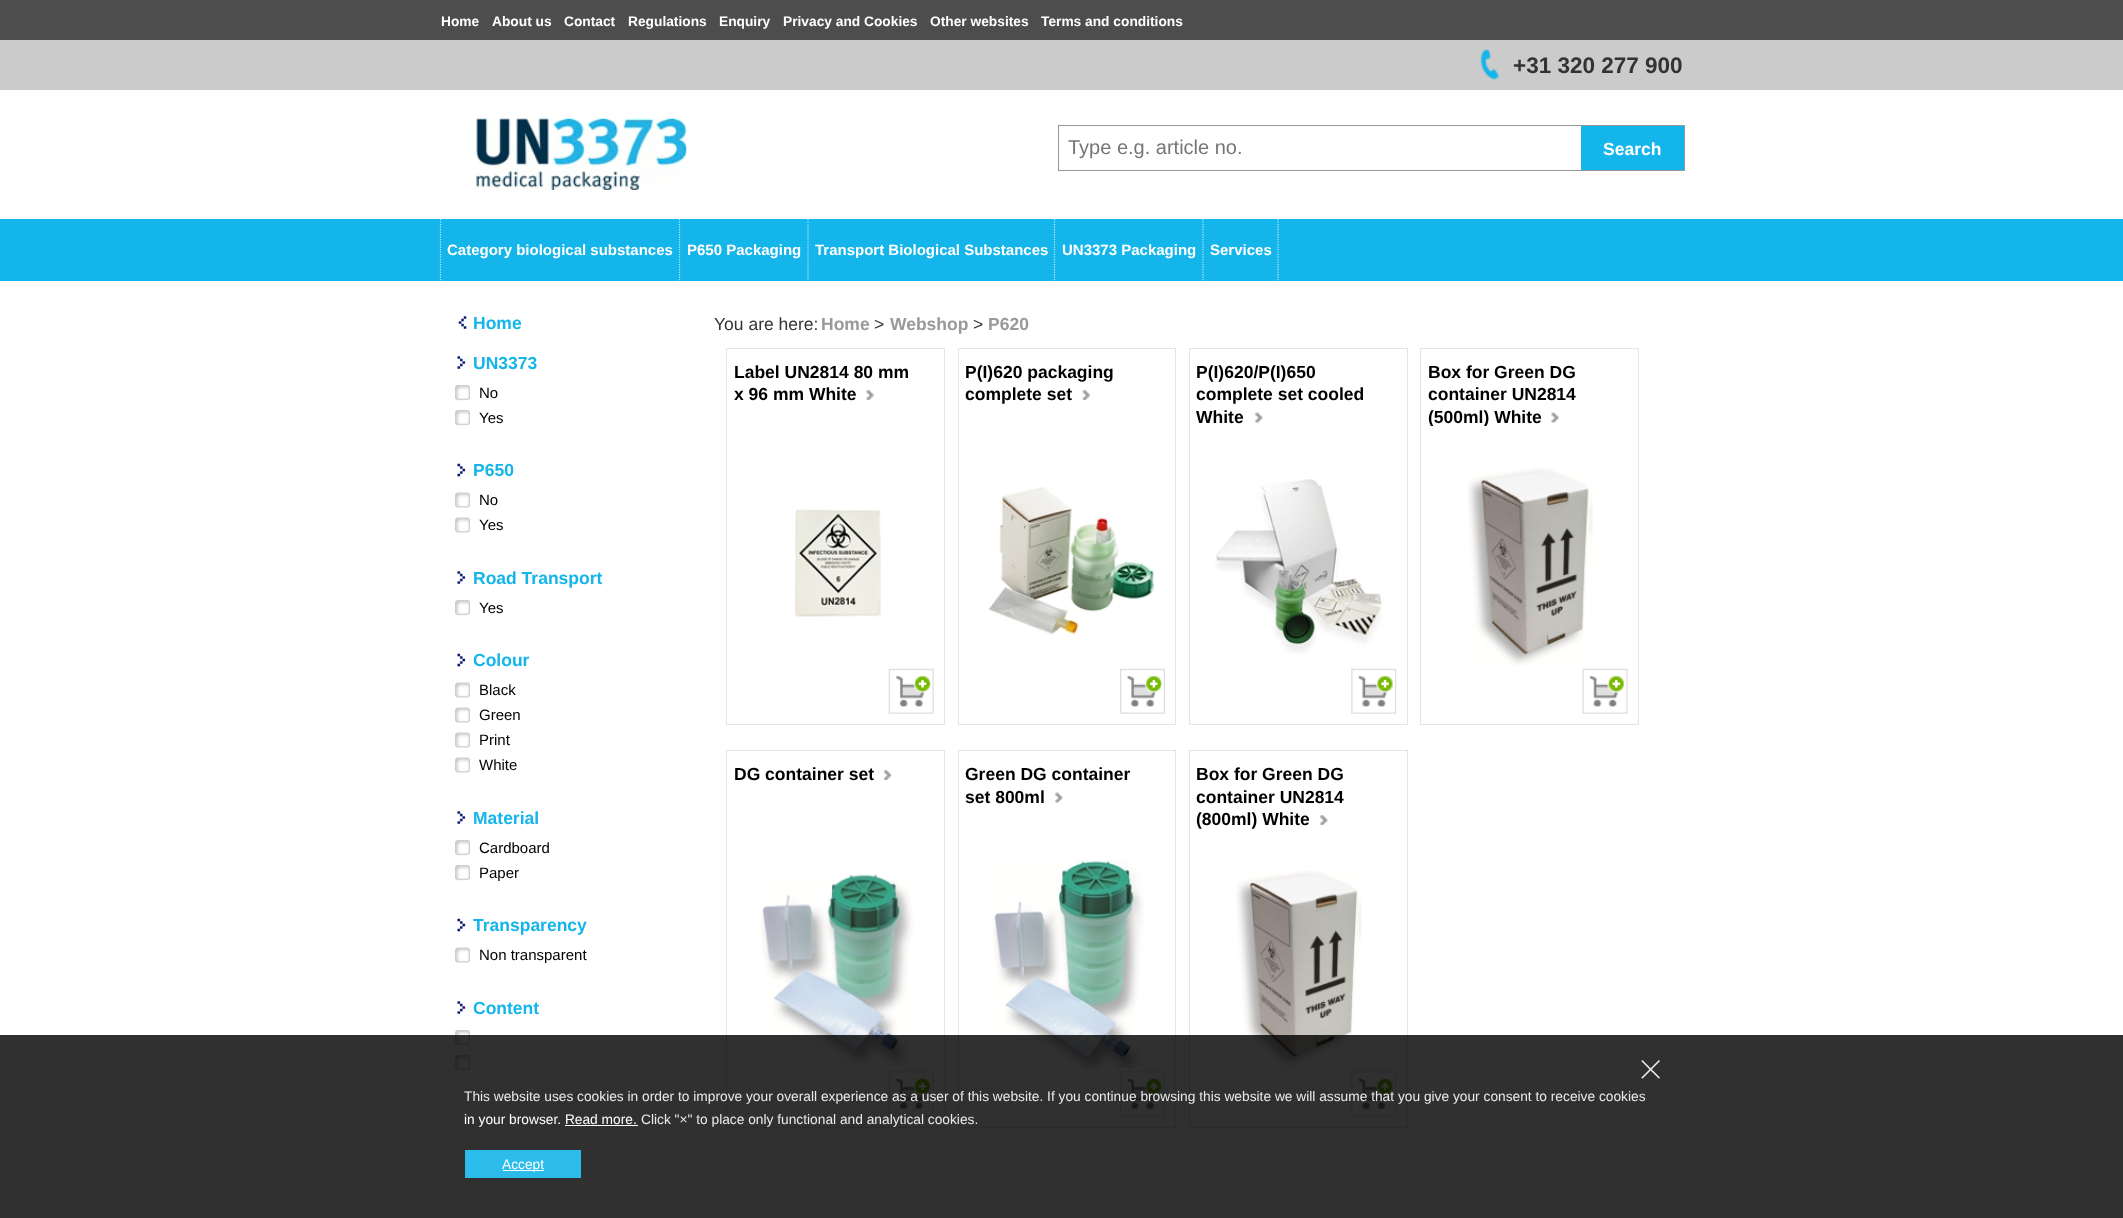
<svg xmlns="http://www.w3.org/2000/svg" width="2123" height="1218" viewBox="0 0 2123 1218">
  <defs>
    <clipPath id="clip1"><rect x="1428" y="359" width="187" height="67"/></clipPath>
  </defs>
  <rect width="100%" height="100%" fill="rgb(255,255,255)"/>
  <rect x="0" y="0" width="2123" height="40" fill="rgb(77,77,77)"/>
  <g font-family="Liberation Sans" font-size="13.75" font-weight="bold" fill="rgb(255,255,255)">
    <text x="441" y="26">Home</text>
    <text x="492" y="26">About us</text>
    <text x="564" y="26">Contact</text>
    <text x="628" y="26">Regulations</text>
    <text x="719" y="26">Enquiry</text>
    <text x="783" y="26">Privacy and Cookies</text>
    <text x="930" y="26">Other websites</text>
    <text x="1041" y="26">Terms and conditions</text>
  </g>
  <rect x="0" y="40" width="2123" height="50" fill="rgb(203,203,203)"/>
  <rect x="1480" y="49" width="19" height="32" fill="rgb(19,181,234)"/>
  <image x="1480" y="49" width="20" height="32" href="pic1.png"/>
  <text x="1513" y="73" font-family="Liberation Sans" font-size="22.5" font-weight="bold" fill="rgb(51,51,51)">+31 320 277 900</text>
  <image x="476" y="118" width="211" height="72" href="pic2.png"/>
  <rect x="1058.5" y="125.5" width="626" height="45" fill="none" stroke="rgb(150,150,150)"/>
  <text x="1068" y="154" font-family="Liberation Sans" font-size="20" fill="rgb(117,117,117)">Type e.g. article no.</text>
  <rect x="1581" y="126" width="103" height="44" fill="rgb(19,181,234)"/>
  <text x="1603" y="155" font-family="Liberation Sans" font-size="17.5" font-weight="bold" fill="rgb(255,255,255)">Search</text>
  <rect x="0" y="219" width="2123" height="62" fill="rgb(19,181,234)"/>
  <path d="M679.5 219V281" fill="none" stroke="rgb(184,233,249)" stroke-width="1.2" stroke-dasharray="1.25 1.25"/>
  <path d="M440.5 219V281" fill="none" stroke="rgb(184,233,249)" stroke-width="1.2" stroke-dasharray="1.25 1.25"/>
  <text x="447" y="255" font-family="Liberation Sans" font-size="15" font-weight="bold" fill="rgb(255,255,255)">Category biological substances</text>
  <path d="M808 219V281" fill="none" stroke="rgb(184,233,249)" stroke-width="1.2" stroke-dasharray="1.25 1.25"/>
  <text x="687" y="255" font-family="Liberation Sans" font-size="15" font-weight="bold" fill="rgb(255,255,255)">P650 Packaging</text>
  <path d="M1054.5 219V281" fill="none" stroke="rgb(184,233,249)" stroke-width="1.2" stroke-dasharray="1.25 1.25"/>
  <text x="815" y="255" font-family="Liberation Sans" font-size="15" font-weight="bold" fill="rgb(255,255,255)">Transport Biological Substances</text>
  <path d="M1203 219V281" fill="none" stroke="rgb(184,233,249)" stroke-width="1.2" stroke-dasharray="1.25 1.25"/>
  <text x="1062" y="255" font-family="Liberation Sans" font-size="15" font-weight="bold" fill="rgb(255,255,255)">UN3373 Packaging</text>
  <path d="M1278 219V281" fill="none" stroke="rgb(184,233,249)" stroke-width="1.2" stroke-dasharray="1.25 1.25"/>
  <text x="1210" y="255" font-family="Liberation Sans" font-size="15" font-weight="bold" fill="rgb(255,255,255)">Services</text>
  <image x="458" y="316" width="9" height="13" href="pic3.png"/>
  <text x="473" y="329" font-family="Liberation Sans" font-size="17.5" font-weight="bold" fill="rgb(19,181,234)">Home</text>
  <image x="457" y="356" width="9" height="13" href="pic4.png"/>
  <text x="473" y="369" font-family="Liberation Sans" font-size="17.5" font-weight="bold" fill="rgb(19,181,234)">UN3373</text>
  <image x="455" y="385" width="15" height="16" href="pic5.png"/>
  <text x="479" y="398" font-family="Liberation Sans" font-size="15" fill="rgb(0,0,0)">No</text>
  <image x="455" y="410" width="15" height="16" href="pic5.png"/>
  <text x="479" y="423" font-family="Liberation Sans" font-size="15" fill="rgb(0,0,0)">Yes</text>
  <image x="457" y="463" width="9" height="14" href="pic6.png"/>
  <text x="473" y="476" font-family="Liberation Sans" font-size="17.5" font-weight="bold" fill="rgb(19,181,234)">P650</text>
  <image x="455" y="492" width="15" height="16" href="pic7.png"/>
  <text x="479" y="505" font-family="Liberation Sans" font-size="15" fill="rgb(0,0,0)">No</text>
  <image x="455" y="517" width="15" height="16" href="pic7.png"/>
  <text x="479" y="530" font-family="Liberation Sans" font-size="15" fill="rgb(0,0,0)">Yes</text>
  <image x="457" y="571" width="9" height="13" href="pic4.png"/>
  <text x="473" y="584" font-family="Liberation Sans" font-size="17.5" font-weight="bold" fill="rgb(19,181,234)">Road Transport</text>
  <image x="455" y="600" width="15" height="16" href="pic5.png"/>
  <text x="479" y="613" font-family="Liberation Sans" font-size="15" fill="rgb(0,0,0)">Yes</text>
  <image x="457" y="653" width="9" height="14" href="pic6.png"/>
  <text x="473" y="666" font-family="Liberation Sans" font-size="17.5" font-weight="bold" fill="rgb(19,181,234)">Colour</text>
  <image x="455" y="682" width="15" height="16" href="pic7.png"/>
  <text x="479" y="695" font-family="Liberation Sans" font-size="15" fill="rgb(0,0,0)">Black</text>
  <image x="455" y="707" width="15" height="16" href="pic7.png"/>
  <text x="479" y="720" font-family="Liberation Sans" font-size="15" fill="rgb(0,0,0)">Green</text>
  <image x="455" y="732" width="15" height="16" href="pic7.png"/>
  <text x="479" y="745" font-family="Liberation Sans" font-size="15" fill="rgb(0,0,0)">Print</text>
  <image x="455" y="757" width="15" height="16" href="pic7.png"/>
  <text x="479" y="770" font-family="Liberation Sans" font-size="15" fill="rgb(0,0,0)">White</text>
  <image x="457" y="811" width="9" height="13" href="pic4.png"/>
  <text x="473" y="824" font-family="Liberation Sans" font-size="17.5" font-weight="bold" fill="rgb(19,181,234)">Material</text>
  <image x="455" y="840" width="15" height="16" href="pic5.png"/>
  <text x="479" y="853" font-family="Liberation Sans" font-size="15" fill="rgb(0,0,0)">Cardboard</text>
  <image x="455" y="865" width="15" height="16" href="pic5.png"/>
  <text x="479" y="878" font-family="Liberation Sans" font-size="15" fill="rgb(0,0,0)">Paper</text>
  <image x="457" y="918" width="9" height="14" href="pic6.png"/>
  <text x="473" y="931" font-family="Liberation Sans" font-size="17.5" font-weight="bold" fill="rgb(19,181,234)">Transparency</text>
  <image x="455" y="947" width="15" height="16" href="pic7.png"/>
  <text x="479" y="960" font-family="Liberation Sans" font-size="15" fill="rgb(0,0,0)">Non transparent</text>
  <image x="457" y="1001" width="9" height="13" href="pic4.png"/>
  <text x="473" y="1014" font-family="Liberation Sans" font-size="17.5" font-weight="bold" fill="rgb(19,181,234)">Content</text>
  <image x="455" y="1030" width="15" height="16" href="pic5.png"/>
  <image x="455" y="1055" width="15" height="16" href="pic5.png"/>
  <text x="714" y="330" font-family="Liberation Sans" font-size="17.5" fill="rgb(51,51,51)">You are here:</text>
  <text x="821" y="330" font-family="Liberation Sans" font-size="17.5" font-weight="bold" fill="rgb(153,153,153)">Home</text>
  <text x="874" y="330" font-family="Liberation Sans" font-size="17.5" fill="rgb(51,51,51)">&gt;</text>
  <text x="890" y="330" font-family="Liberation Sans" font-size="17.5" font-weight="bold" fill="rgb(153,153,153)">Webshop</text>
  <text x="973" y="330" font-family="Liberation Sans" font-size="17.5" fill="rgb(51,51,51)">&gt;</text>
  <text x="988" y="330" font-family="Liberation Sans" font-size="17.5" font-weight="bold" fill="rgb(153,153,153)">P620</text>
  <rect x="726.5" y="348.5" width="218" height="376" fill="none" stroke="rgb(229,229,229)"/>
  <g font-family="Liberation Sans" font-size="17.5" font-weight="bold" fill="rgb(0,0,0)">
    <text>
      <tspan x="734" y="378">Label UN2814 80 mm</tspan>
      <tspan x="734" y="400">x 96 mm White</tspan>
    </text>
  </g>
  <image x="866" y="390" width="8" height="10" href="pic8.png"/>
  <image x="794" y="509" width="87" height="108" href="pic9.png"/>
  <image x="888" y="668" width="46" height="46" href="pic10.png"/>
  <rect x="958.5" y="348.5" width="217" height="376" fill="none" stroke="rgb(229,229,229)"/>
  <g font-family="Liberation Sans" font-size="17.5" font-weight="bold" fill="rgb(0,0,0)">
    <text>
      <tspan x="965" y="378">P(I)620 packaging</tspan>
      <tspan x="965" y="400">complete set</tspan>
    </text>
  </g>
  <image x="1082" y="390" width="8" height="10" href="pic11.png"/>
  <image x="988" y="487" width="167" height="148" href="pic12.png"/>
  <image x="1120" y="668" width="45" height="46" href="pic13.png"/>
  <rect x="1189.5" y="348.5" width="218" height="376" fill="none" stroke="rgb(229,229,229)"/>
  <g font-family="Liberation Sans" font-size="17.5" font-weight="bold" fill="rgb(0,0,0)">
    <text>
      <tspan x="1196" y="378">P(I)620/P(I)650</tspan>
      <tspan x="1196" y="400">complete set cooled</tspan>
      <tspan x="1196" y="423">White</tspan>
    </text>
  </g>
  <image x="1255" y="412" width="8" height="11" href="pic14.png"/>
  <image x="1215" y="479" width="167" height="175" href="pic15.png"/>
  <image x="1351" y="668" width="46" height="46" href="pic16.png"/>
  <rect x="1420.5" y="348.5" width="218" height="376" fill="none" stroke="rgb(229,229,229)"/>
  <g font-family="Liberation Sans" font-size="17.5" font-weight="bold" fill="rgb(0,0,0)">
    <text>
      <tspan x="1428" y="378">Box for Green DG</tspan>
      <tspan x="1428" y="400">container UN2814</tspan>
    </text>
  </g>
  <g clip-path="url(#clip1)">
    <text x="1428" y="423" font-family="Liberation Sans" font-size="17.5" font-weight="bold" fill="rgb(0,0,0)">(500ml) White</text>
  </g>
  <image x="1551" y="412" width="8" height="11" href="pic17.png"/>
  <image x="1467" y="467" width="126" height="199" href="pic18.png"/>
  <image x="1582" y="668" width="46" height="46" href="pic19.png"/>
  <rect x="726.5" y="750.5" width="218" height="377" fill="none" stroke="rgb(229,229,229)"/>
  <text x="734" y="780" font-family="Liberation Sans" font-size="17.5" font-weight="bold" fill="rgb(0,0,0)">DG container set</text>
  <image x="883" y="770" width="9" height="10" href="pic20.png"/>
  <image x="760" y="874" width="154" height="193" href="pic21.png"/>
  <image x="888" y="1071" width="46" height="46" href="pic22.png"/>
  <rect x="958.5" y="750.5" width="217" height="377" fill="none" stroke="rgb(229,229,229)"/>
  <g font-family="Liberation Sans" font-size="17.5" font-weight="bold" fill="rgb(0,0,0)">
    <text>
      <tspan x="965" y="780">Green DG container</tspan>
      <tspan x="965" y="803">set 800ml</tspan>
    </text>
  </g>
  <image x="1055" y="792" width="8" height="11" href="pic23.png"/>
  <image x="992" y="860" width="153" height="209" href="pic24.png"/>
  <image x="1120" y="1071" width="45" height="46" href="pic25.png"/>
  <rect x="1189.5" y="750.5" width="218" height="377" fill="none" stroke="rgb(229,229,229)"/>
  <g font-family="Liberation Sans" font-size="17.5" font-weight="bold" fill="rgb(0,0,0)">
    <text>
      <tspan x="1196" y="780">Box for Green DG</tspan>
      <tspan x="1196" y="803">container UN2814</tspan>
      <tspan x="1196" y="825">(800ml) White</tspan>
    </text>
  </g>
  <image x="1320" y="815" width="8" height="10" href="pic26.png"/>
  <image x="1236" y="870" width="126" height="199" href="pic27.png"/>
  <image x="1351" y="1071" width="46" height="46" href="pic28.png"/>
  <rect x="0" y="1035" width="2123" height="183" fill="rgba(0,0,0,0.81)"/>
  <image x="1641" y="1060" width="19" height="19" href="pic29.png"/>
  <text x="464" y="1101" font-family="Liberation Sans" font-size="13.75" fill="rgb(234,234,234)">This website uses cookies in order to improve your overall experience as a user of this website. If you continue browsing this website we will assume that you give your consent to receive cookies</text>
  <text x="464" y="1124" font-family="Liberation Sans" font-size="13.75" fill="rgb(255,255,255)">in your browser. Read more.</text>
  <text x="641" y="1124" font-family="Liberation Sans" font-size="13.75" fill="rgb(234,234,234)">Click "×" to place only functional and analytical cookies.</text>
  <rect x="565" y="1125" width="73" height="1" fill="rgb(255,255,255)"/>
  <rect x="465" y="1150" width="116" height="28" fill="rgb(43,188,236)"/>
  <rect x="503" y="1170" width="41" height="1" fill="rgb(255,255,255)"/>
  <text x="502" y="1169" font-family="Liberation Sans" font-size="13.75" fill="rgb(255,255,255)">Accept</text>
</svg>
